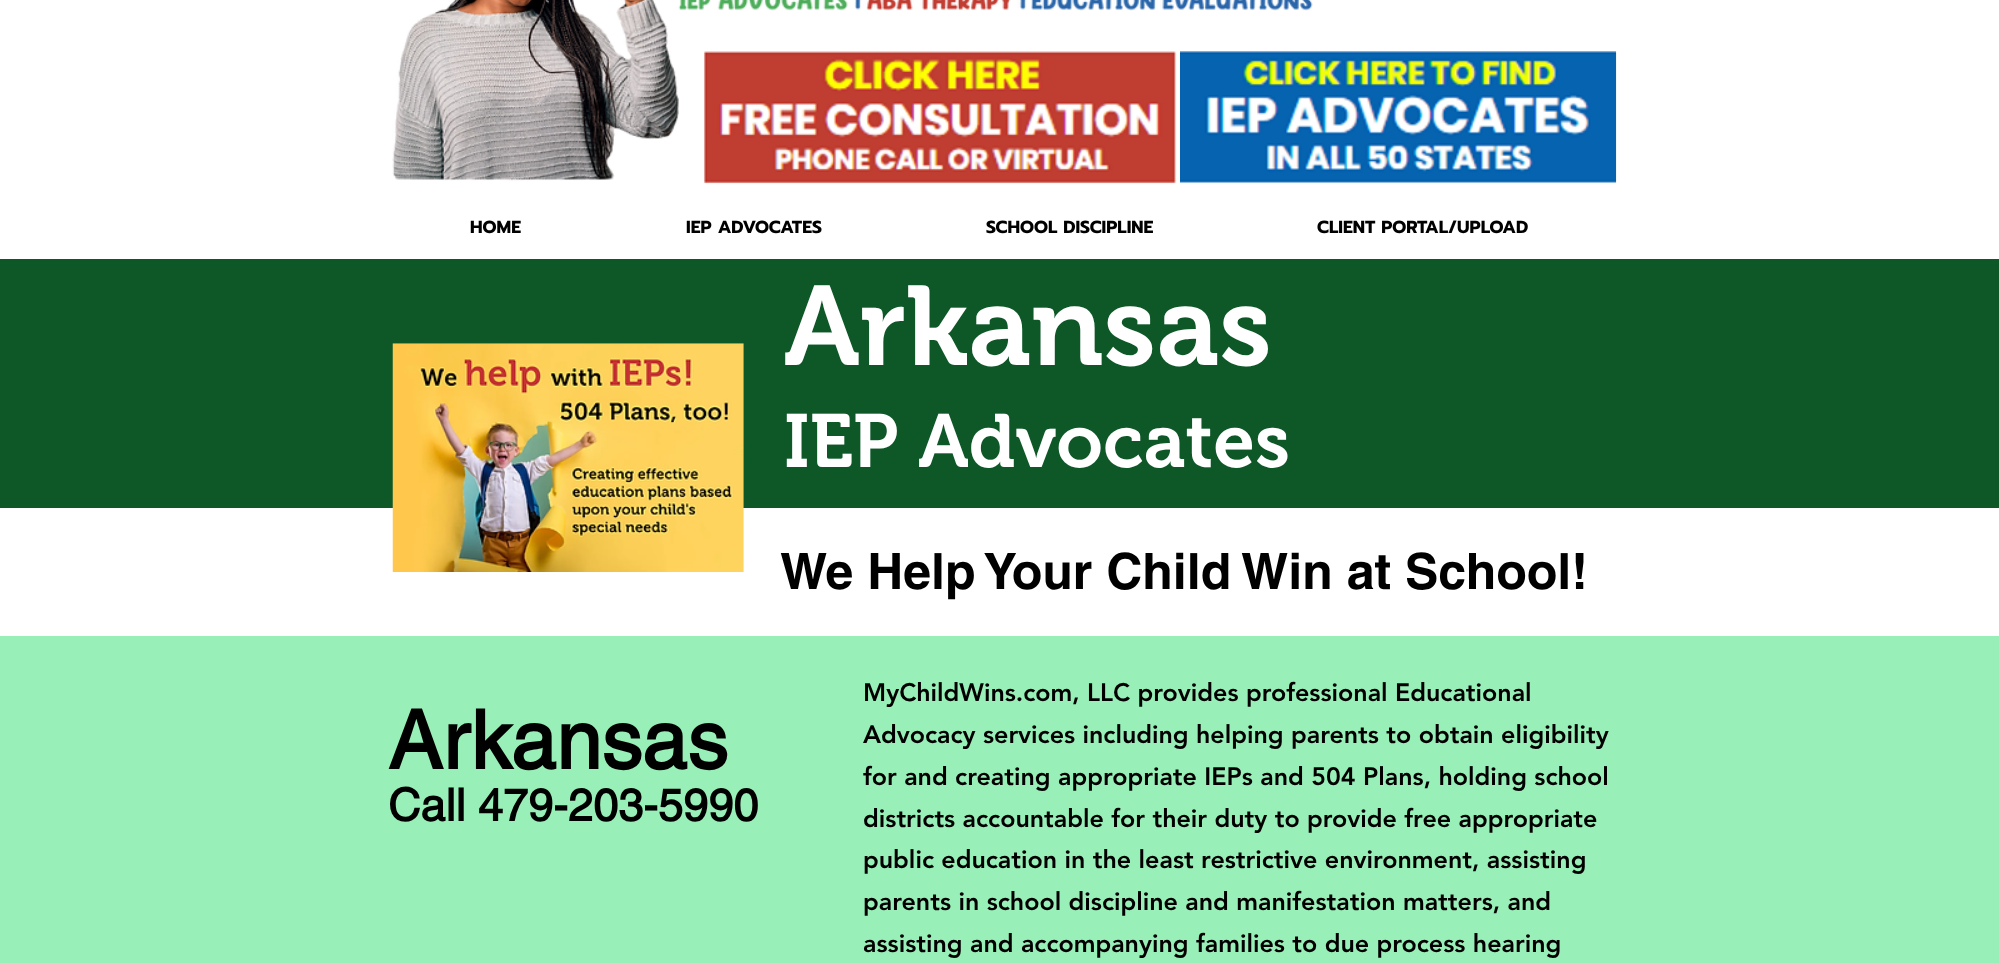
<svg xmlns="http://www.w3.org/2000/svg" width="1999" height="963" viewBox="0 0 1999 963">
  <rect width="100%" height="100%" fill="rgb(255,255,255)"/>
  <image x="678" y="0" width="635" height="11" href="pic2.png"/>
  <image x="392" y="0" width="287" height="181" href="pic1.png"/>
  <image x="704" y="51" width="473" height="133" href="pic3.png"/>
  <image x="1180" y="51" width="437" height="133" href="pic4.png"/>
  <g font-family="Prompt" font-size="17.5" font-weight="bold" fill="rgb(0,0,0)">
    <text x="470" y="233">HOME</text>
    <text x="686" y="233">IEP ADVOCATES</text>
    <text x="986" y="233">SCHOOL DISCIPLINE</text>
    <text x="1317" y="233">CLIENT PORTAL/UPLOAD</text>
  </g>
  <rect x="0" y="259" width="1999" height="249" fill="rgb(14,88,40)"/>
  <image x="392" y="343" width="352" height="229" href="pic5.png"/>
  <text x="784" y="365" font-family="'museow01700'" font-size="112.5" font-weight="600" fill="rgb(255,255,255)">Arkansas</text>
  <text x="784" y="467" font-family="'museow01700'" font-size="75" font-weight="600" fill="rgb(255,255,255)">IEP Advocates</text>
  <text x="780" y="589" font-family="helvetica" font-size="50" font-weight="bold" fill="rgb(0,0,0)">We Help Your Child Win at School!</text>
  <rect x="0" y="636" width="1999" height="327" fill="rgb(152,239,183)"/>
  <text x="388" y="769" font-family="'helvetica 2'" font-size="81.25" font-weight="bold" fill="rgb(0,0,0)">Arkansas</text>
  <text x="388" y="821" font-family="'helvetica 2'" font-size="45" font-weight="bold" fill="rgb(0,0,0)">Call 479-203-5990</text>
  <g font-family="'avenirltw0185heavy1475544'" font-size="25" font-weight="900" fill="rgb(0,0,0)">
    <text>
      <tspan x="863" y="701">MyChildWins.com, LLC provides professional Educational</tspan>
      <tspan x="863" y="743">Advocacy services including helping parents to obtain eligibility</tspan>
      <tspan x="863" y="785">for and creating appropriate IEPs and 504 Plans, holding school</tspan>
      <tspan x="863" y="827">districts accountable for their duty to provide free appropriate</tspan>
      <tspan x="863" y="868">public education in the least restrictive environment, assisting</tspan>
      <tspan x="863" y="910">parents in school discipline and manifestation matters, and</tspan>
      <tspan x="863" y="952">assisting and accompanying families to due process hearing</tspan>
    </text>
  </g>
</svg>
